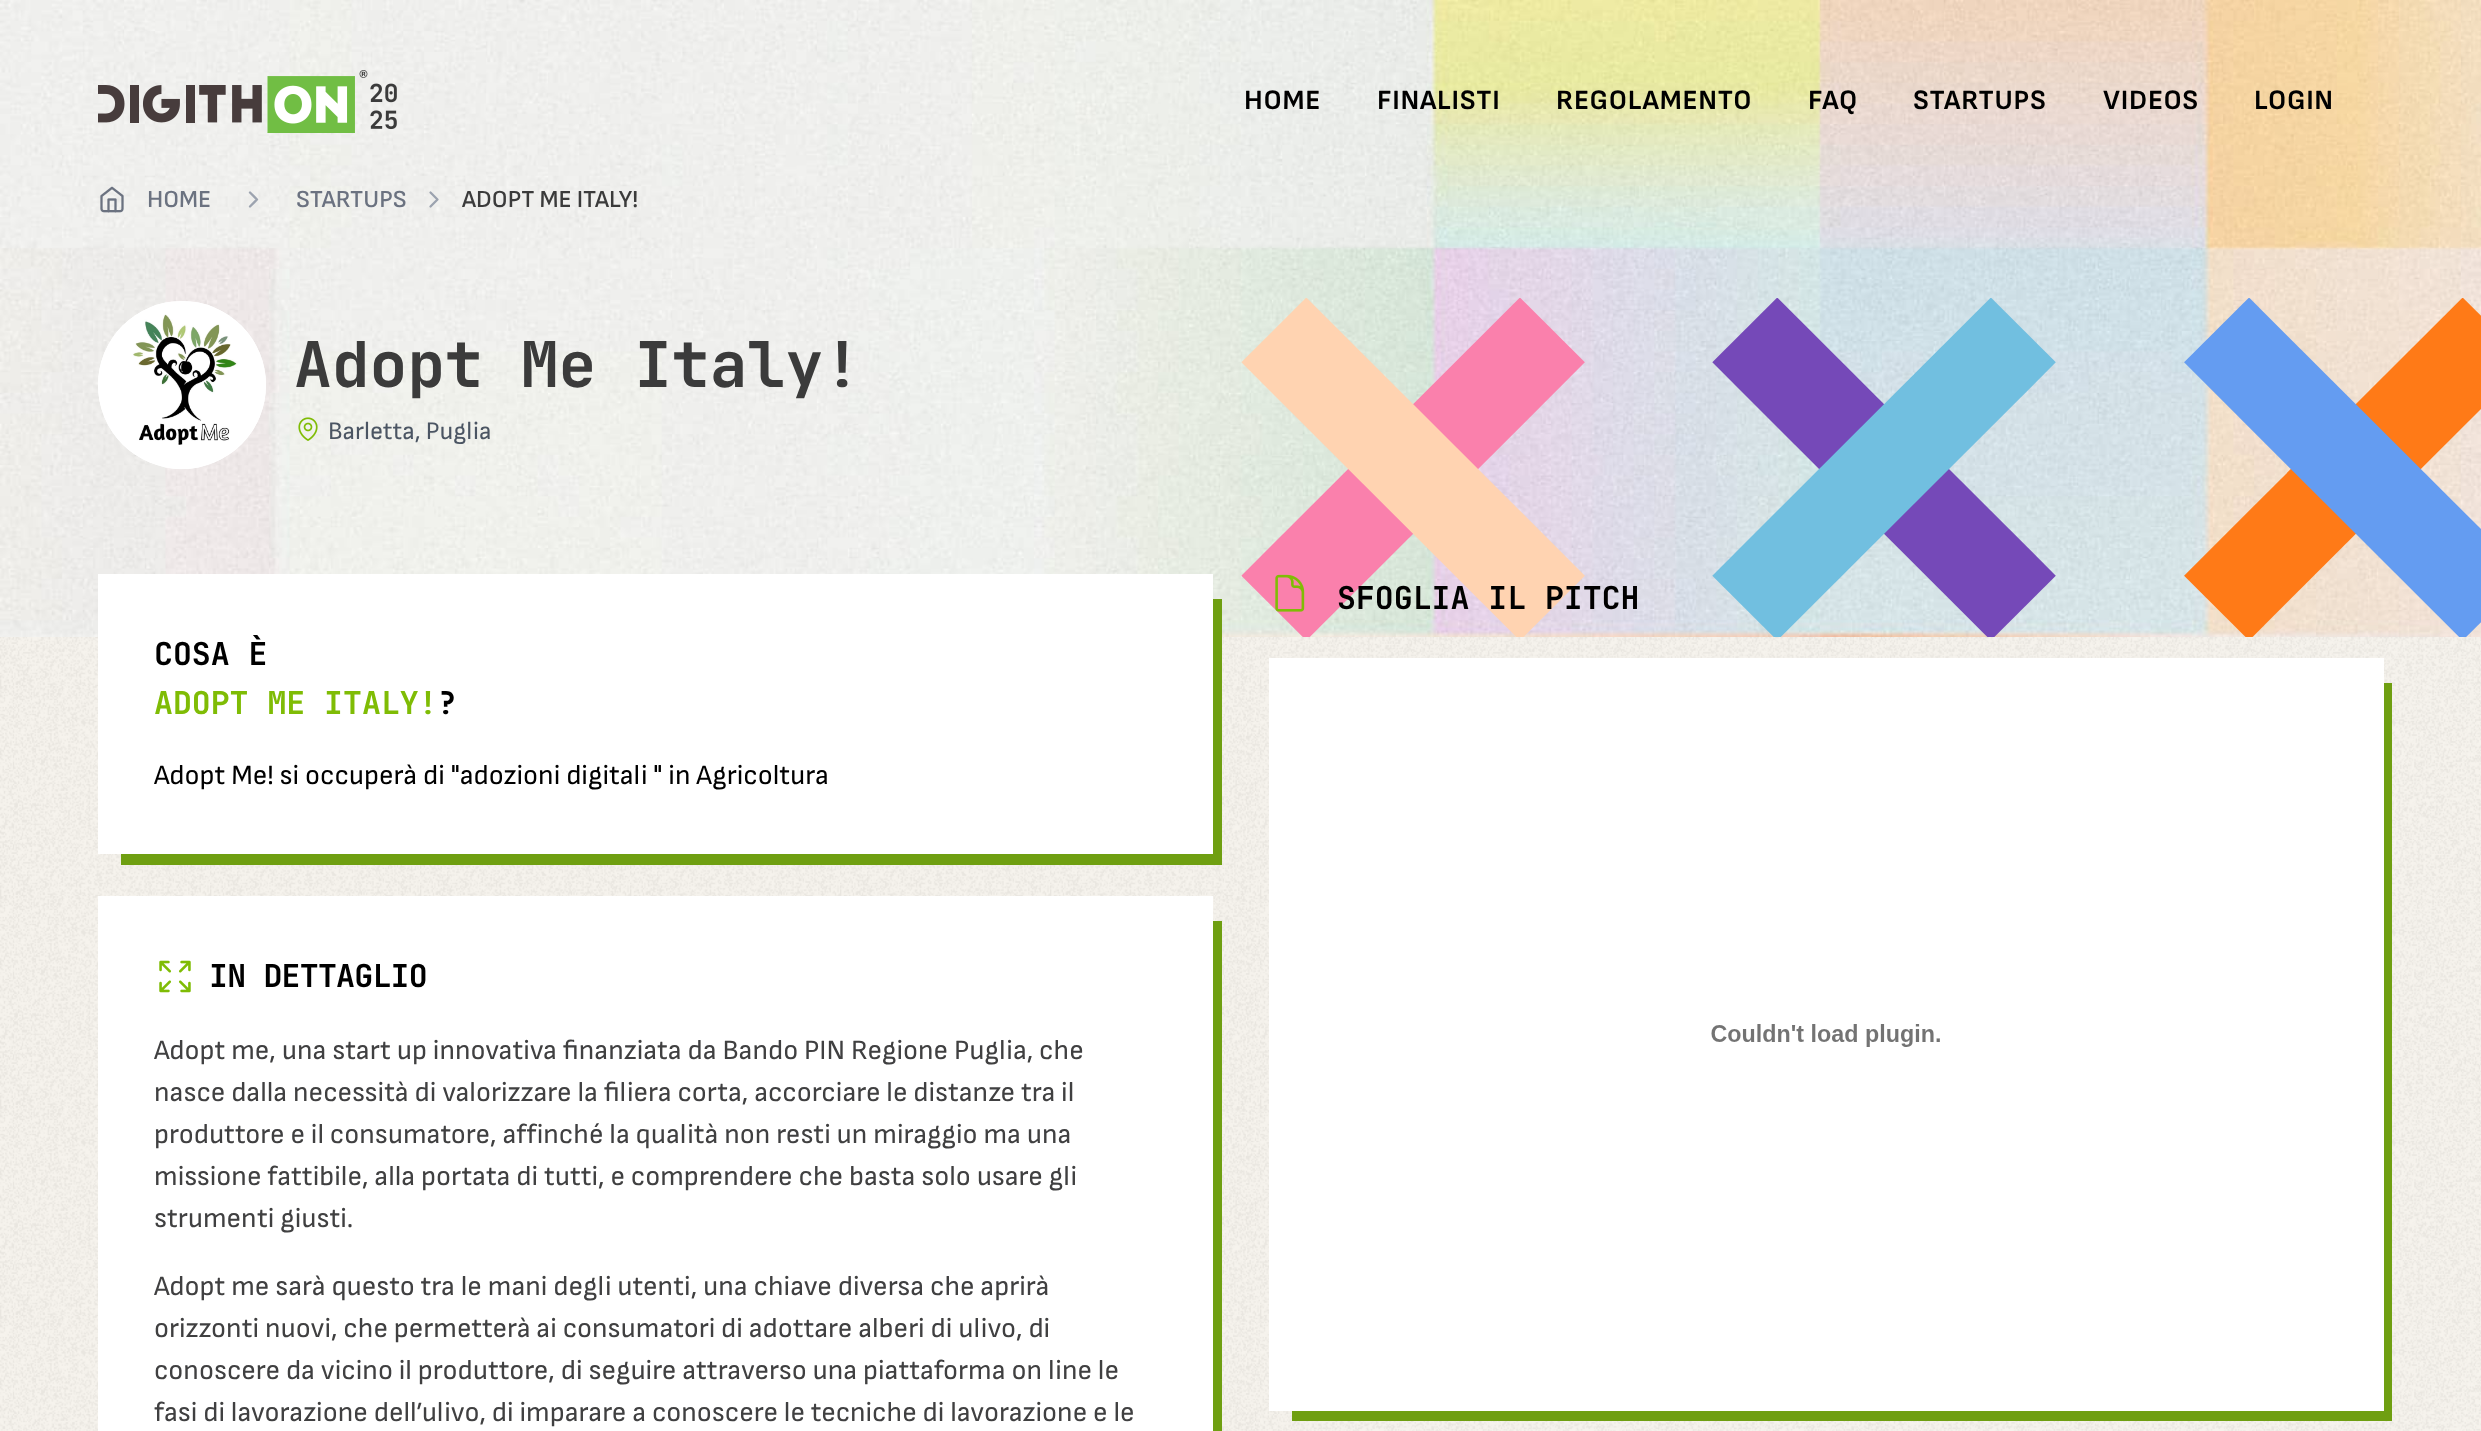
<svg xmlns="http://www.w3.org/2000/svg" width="2481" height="1431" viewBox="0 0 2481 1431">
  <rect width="100%" height="100%" fill="rgb(255,255,255)"/>
  <image x="0" y="637" width="2481" height="794" href="pic1.png"/>
  <image x="0" y="0" width="2481" height="637" href="pic3.png"/>
  <image x="98" y="70" width="299" height="63" href="pic2.png"/>
  <g font-family="Sofia Sans" font-size="28" font-weight="bold" letter-spacing="0.75" fill="rgb(0,0,0)">
    <text x="1244" y="109">HOME</text>
    <text x="1377" y="109">FINALISTI</text>
    <text x="1556" y="109">REGOLAMENTO</text>
    <text x="1808" y="109">FAQ</text>
    <text x="1913" y="109">STARTUPS</text>
    <text x="2103" y="109">VIDEOS</text>
    <text x="2254" y="109">LOGIN</text>
  </g>
  <image x="100" y="186" width="24" height="27" href="pic4.png"/>
  <text x="147" y="207" font-family="Sofia Sans" font-size="24.5" font-weight="600" fill="rgb(107,114,128)">HOME</text>
  <path d="M250 206.5L257 199.5L250 192.5" fill="none" stroke="rgb(156,163,175)" stroke-width="2.3" stroke-linecap="round" stroke-linejoin="round"/>
  <text x="296" y="207" font-family="Sofia Sans" font-size="24.5" font-weight="600" fill="rgb(107,114,128)">STARTUPS</text>
  <path d="M430.5 206.5L437.5 199.5L430.5 192.5" fill="none" stroke="rgb(156,163,175)" stroke-width="2.3" stroke-linecap="round" stroke-linejoin="round"/>
  <text x="462" y="207" font-family="Sofia Sans" font-size="24.5" font-weight="600" fill="rgb(59,59,59)">ADOPT ME ITALY!</text>
  <circle cx="182" cy="385" r="84" fill="rgb(255,255,255)"/>
  <image x="98" y="301" width="168" height="168" href="pic5.png"/>
  <text x="294" y="387" font-family="JetBrains Mono" font-size="63" font-weight="bold" fill="rgb(59,59,59)">Adopt Me Italy!</text>
  <image x="298" y="417" width="20" height="24" href="pic6.png"/>
  <text x="328" y="439" font-family="Sofia Sans" font-size="25.25" fill="rgb(75,85,99)">Barletta, Puglia</text>
  <image x="1241" y="298" width="1240" height="339" href="pic7.png"/>
  <image x="1275" y="574" width="30" height="38" href="pic8.png"/>
  <text x="1337" y="609" font-family="JetBrains Mono" font-size="31.5" font-weight="bold" fill="rgb(0,0,0)">SFOGLIA IL PITCH</text>
  <path d="M1292 1410V1421H2392V683H2384V1410Z" fill="rgb(111,159,17)"/>
  <rect x="1269" y="658" width="1115" height="753" fill="rgb(255,255,255)"/>
  <image x="1711" y="1024" width="229" height="23" href="pic9.png"/>
  <path d="M121 854V865H1222V599H1213V854Z" fill="rgb(111,159,17)"/>
  <rect x="98" y="574" width="1115" height="280" fill="rgb(255,255,255)"/>
  <text x="154" y="665" font-family="JetBrains Mono" font-size="31.5" font-weight="bold" fill="rgb(0,0,0)">COSA È</text>
  <text x="154" y="714" font-family="JetBrains Mono" font-size="31.5" font-weight="bold" fill="rgb(127,188,5)">ADOPT ME ITALY!</text>
  <text x="438" y="714" font-family="JetBrains Mono" font-size="31.5" font-weight="bold" fill="rgb(0,0,0)">?</text>
  <text x="154" y="784" font-family="Sofia Sans" font-size="28" fill="rgb(0,0,0)">Adopt Me! si occuperà di "adozioni digitali " in Agricoltura</text>
  <path d="M121 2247V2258H1222V921H1213V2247Z" fill="rgb(111,159,17)"/>
  <rect x="98" y="896" width="1115" height="535" fill="rgb(255,255,255)"/>
  <image x="159" y="960" width="32" height="33" href="pic10.png"/>
  <text x="209" y="987" font-family="JetBrains Mono" font-size="31.5" font-weight="bold" letter-spacing="-0.75" fill="rgb(0,0,0)">IN DETTAGLIO</text>
  <g font-family="Sofia Sans" font-size="28" fill="rgb(64,64,65)">
    <text>
      <tspan x="154" y="1059">Adopt me, una start up innovativa finanziata da Bando PIN Regione Puglia, che</tspan>
      <tspan x="154" y="1101">nasce dalla necessità di valorizzare la filiera corta, accorciare le distanze tra il</tspan>
      <tspan x="154" y="1143">produttore e il consumatore, affinché la qualità non resti un miraggio ma una</tspan>
      <tspan x="154" y="1185">missione fattibile, alla portata di tutti, e comprendere che basta solo usare gli</tspan>
      <tspan x="154" y="1227">strumenti giusti.</tspan>
    </text>
    <text>
      <tspan x="154" y="1295">Adopt me sarà questo tra le mani degli utenti, una chiave diversa che aprirà</tspan>
      <tspan x="154" y="1337">orizzonti nuovi, che permetterà ai consumatori di adottare alberi di ulivo, di</tspan>
      <tspan x="154" y="1379">conoscere da vicino il produttore, di seguire attraverso una piattaforma on line le</tspan>
      <tspan x="154" y="1421">fasi di lavorazione dell’ulivo, di imparare a conoscere le tecniche di lavorazione e le</tspan>
    </text>
  </g>
</svg>
